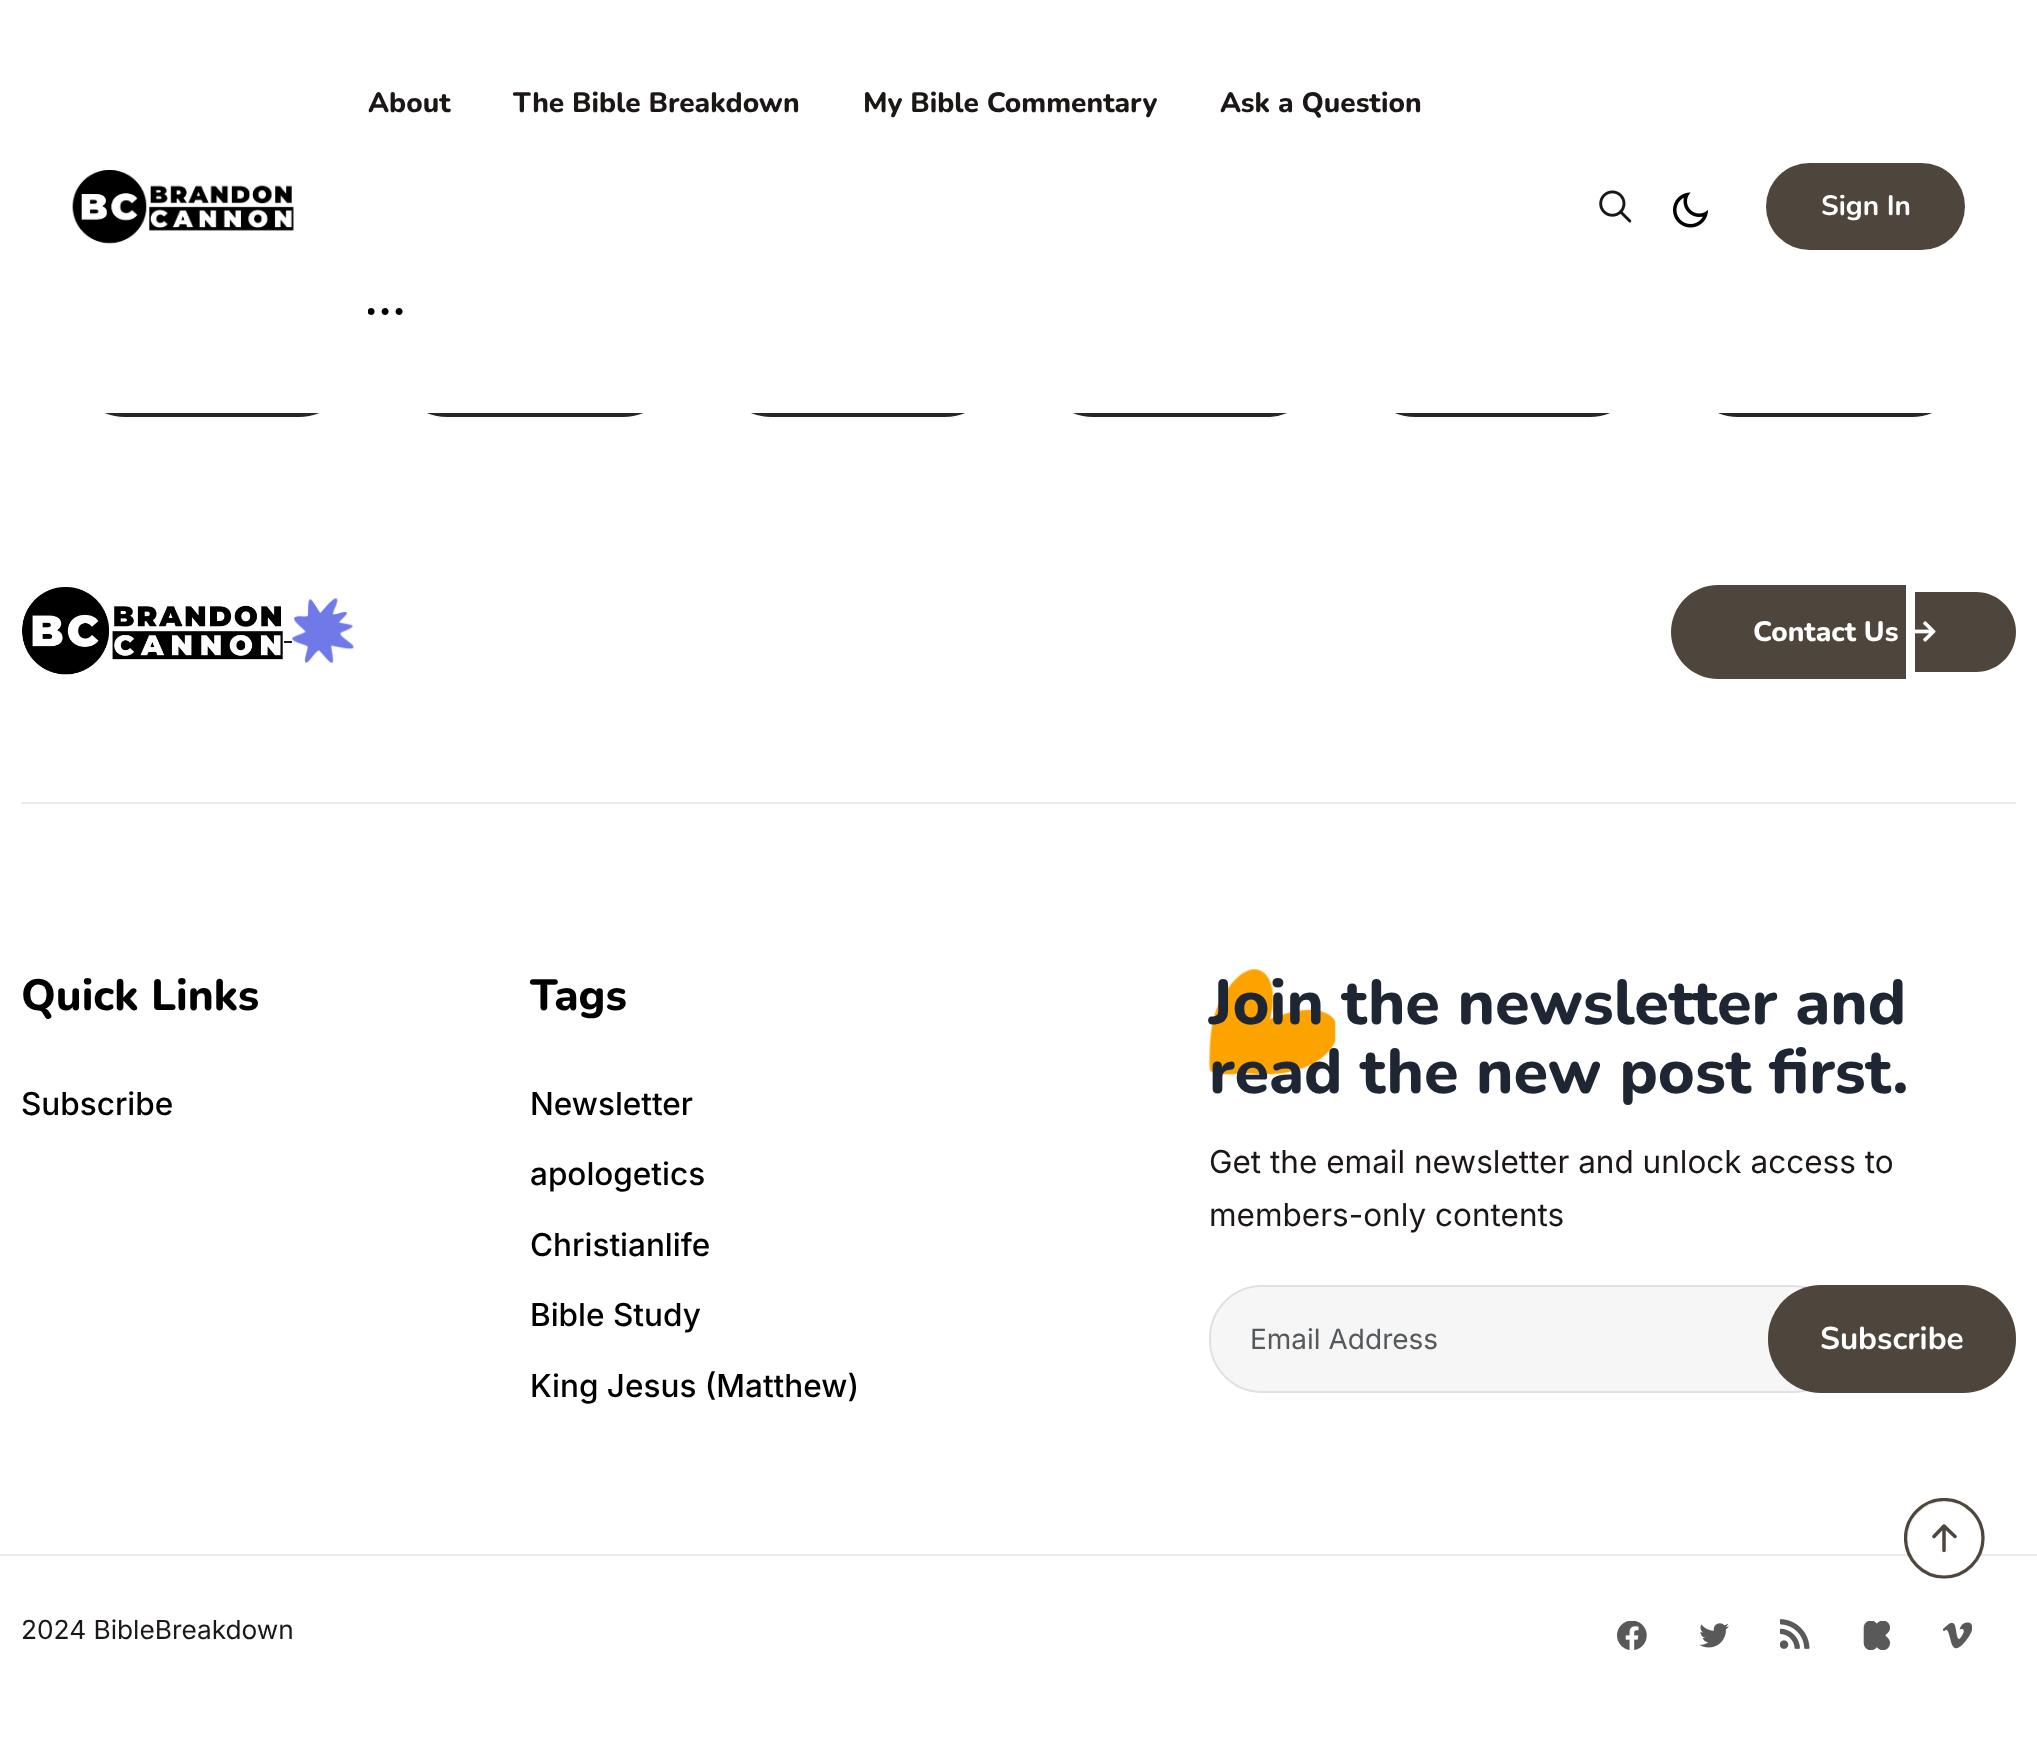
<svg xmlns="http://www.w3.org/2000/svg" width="2037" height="1762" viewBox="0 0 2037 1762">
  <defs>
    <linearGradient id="g1" gradientUnits="userSpaceOnUse" x1="212" y1="136" x2="212" y2="417"><stop offset="0" stop-color="rgb(255,255,255)"/><stop offset="0.5" stop-color="rgb(89,89,89)"/><stop offset="1" stop-color="rgb(38,38,38)"/></linearGradient>
    <linearGradient id="g2" gradientUnits="userSpaceOnUse" x1="535" y1="136" x2="535" y2="417"><stop offset="0" stop-color="rgb(255,255,255)"/><stop offset="0.5" stop-color="rgb(89,89,89)"/><stop offset="1" stop-color="rgb(38,38,38)"/></linearGradient>
    <linearGradient id="g3" gradientUnits="userSpaceOnUse" x1="858" y1="136" x2="858" y2="417"><stop offset="0" stop-color="rgb(255,255,255)"/><stop offset="0.5" stop-color="rgb(89,89,89)"/><stop offset="1" stop-color="rgb(38,38,38)"/></linearGradient>
    <linearGradient id="g4" gradientUnits="userSpaceOnUse" x1="1180" y1="136" x2="1180" y2="417"><stop offset="0" stop-color="rgb(255,255,255)"/><stop offset="0.5" stop-color="rgb(89,89,89)"/><stop offset="1" stop-color="rgb(38,38,38)"/></linearGradient>
    <linearGradient id="g5" gradientUnits="userSpaceOnUse" x1="1502" y1="136" x2="1502" y2="417"><stop offset="0" stop-color="rgb(255,255,255)"/><stop offset="0.5" stop-color="rgb(89,89,89)"/><stop offset="1" stop-color="rgb(38,38,38)"/></linearGradient>
    <linearGradient id="g6" gradientUnits="userSpaceOnUse" x1="1825" y1="136" x2="1825" y2="417"><stop offset="0" stop-color="rgb(255,255,255)"/><stop offset="0.5" stop-color="rgb(89,89,89)"/><stop offset="1" stop-color="rgb(38,38,38)"/></linearGradient>
    <clipPath id="clip1"><rect x="1904" y="1498" width="81" height="81"/></clipPath>
  </defs>
  <rect width="100%" height="100%" fill="rgb(255,255,255)"/>
  <rect x="72" y="137" width="280" height="280" rx="53" fill="url(#g1)"/>
  <rect x="394" y="137" width="282" height="280" rx="53" fill="url(#g2)"/>
  <rect x="718" y="137" width="280" height="280" rx="53" fill="url(#g3)"/>
  <rect x="1040" y="137" width="280" height="280" rx="53" fill="url(#g4)"/>
  <rect x="1362" y="137" width="281" height="280" rx="53" fill="url(#g5)"/>
  <rect x="1685" y="137" width="280" height="280" rx="53" fill="url(#g6)"/>
  <rect x="72" y="138" width="1893" height="275" fill="rgb(255,255,255)"/>
  <g font-family="Nunito" font-size="28" font-weight="800" fill="rgb(28,23,23)">
    <text x="368" y="112">About</text>
    <text x="513" y="112">The Bible Breakdown</text>
    <text x="863" y="112">My Bible Commentary</text>
    <text x="1220" y="112">Ask a Question</text>
  </g>
  <image x="368" y="308" width="35" height="7" href="pic1.png"/>
  <image x="72" y="170" width="222" height="74" href="pic2.png"/>
  <image x="1599" y="190" width="33" height="33" href="pic3.png"/>
  <image x="1673" y="192" width="35" height="36" href="pic4.png"/>
  <rect x="1766" y="163" width="199" height="87" rx="43.5" fill="rgb(78,70,61)"/>
  <text x="1821" y="215" font-family="Nunito" font-size="28" font-weight="bold" fill="rgb(255,255,255)">Sign In</text>
  <image x="22" y="587" width="261" height="88" href="pic5.png"/>
  <rect x="284" y="641" width="8" height="2" fill="rgb(28,23,23)"/>
  <image x="292" y="598" width="62" height="65" href="pic6.png"/>
  <path d="M1718 585H1906V679H1718C1692 679 1671 658 1671 632C1671 606 1692 585 1718 585Z" fill="rgb(78,70,61)"/>
  <text x="1753" y="641" font-family="Nunito" font-size="28" font-weight="800" fill="rgb(255,255,255)">Contact Us</text>
  <path d="M1915 592H1976C1998 592 2016 610 2016 632C2016 654 1998 672 1976 672H1915Z" fill="rgb(78,70,61)"/>
  <image x="1915" y="621" width="21" height="21" href="pic7.png"/>
  <rect x="21" y="802" width="1995" height="2" fill="rgb(235,235,235)"/>
  <text x="21" y="1010" font-family="Nunito" font-size="43.75" font-weight="800" fill="rgb(0,0,0)">Quick Links</text>
  <text x="21" y="1115" font-family="Inter" font-size="31.5" font-weight="500" fill="rgb(0,0,0)">Subscribe</text>
  <text x="530" y="1010" font-family="Nunito" font-size="43.75" font-weight="800" fill="rgb(0,0,0)">Tags</text>
  <g font-family="Inter" font-size="31.5" font-weight="500" fill="rgb(0,0,0)">
    <text x="530" y="1115">Newsletter</text>
    <text x="530" y="1185">apologetics</text>
    <text x="530" y="1256">Christianlife</text>
    <text x="530" y="1326">Bible Study</text>
    <text x="530" y="1397">King Jesus (Matthew)</text>
  </g>
  <image x="1209" y="969" width="127" height="106" href="pic8.png"/>
  <g font-family="Nunito" font-size="63" font-weight="800" fill="rgb(30,38,51)">
    <text>
      <tspan x="1209" y="1024">Join the newsletter and</tspan>
      <tspan x="1209" y="1093">read the new post first.</tspan>
    </text>
  </g>
  <g font-family="Inter" font-size="31.5" fill="rgb(28,23,23)">
    <text>
      <tspan x="1209" y="1173">Get the email newsletter and unlock access to</tspan>
      <tspan x="1209" y="1226">members-only contents</tspan>
    </text>
  </g>
  <rect x="1210" y="1286" width="635" height="106" rx="52" fill="rgb(246,246,246)" stroke="rgb(222,226,230)" stroke-width="2"/>
  <text x="1250" y="1349" font-family="Inter" font-size="28" fill="rgb(86,89,92)">Email Address</text>
  <rect x="1768" y="1285" width="248" height="108" rx="53" fill="rgb(78,70,61)"/>
  <text x="1820" y="1349" font-family="Nunito" font-size="31.5" font-weight="bold" fill="rgb(255,255,255)">Subscribe</text>
  <rect x="0" y="1554" width="2037" height="2" fill="rgb(235,235,235)"/>
  <text x="21" y="1639" font-family="Inter" font-size="26.25" fill="rgb(28,23,23)">2024 BibleBreakdown</text>
  <image x="1617" y="1621" width="30" height="29" href="pic9.png"/>
  <image x="1699" y="1623" width="30" height="25" href="pic10.png"/>
  <image x="1780" y="1619" width="30" height="30" href="pic11.png"/>
  <image x="1863" y="1621" width="27" height="29" href="pic12.png"/>
  <image x="1943" y="1622" width="29" height="27" href="pic13.png"/>
  <circle cx="1944.5" cy="1538.5" r="40.5" fill="rgb(255,255,255)"/>
  <circle cx="1944.5" cy="1538.5" r="38.5" fill="none" stroke="rgba(78,70,61,0.12)" stroke-width="4"/>
  <g clip-path="url(#clip1)">
    <path d="M1944 1499.5C1965.5 1499.5 1983 1517 1983 1538C1983 1559.5 1965.5 1577 1944 1577C1923 1577 1905.5 1559.5 1905.5 1538C1905.5 1517 1923 1499.5 1944 1499.5" fill="none" stroke="rgb(78,70,61)" stroke-width="3.2"/>
  </g>
  <path d="M1944 1526V1550.5M1955 1536.5L1944 1526M1934 1536.5L1944 1526" fill="none" stroke="rgb(78,70,61)" stroke-width="3.5" stroke-linecap="round" stroke-linejoin="round"/>
</svg>
